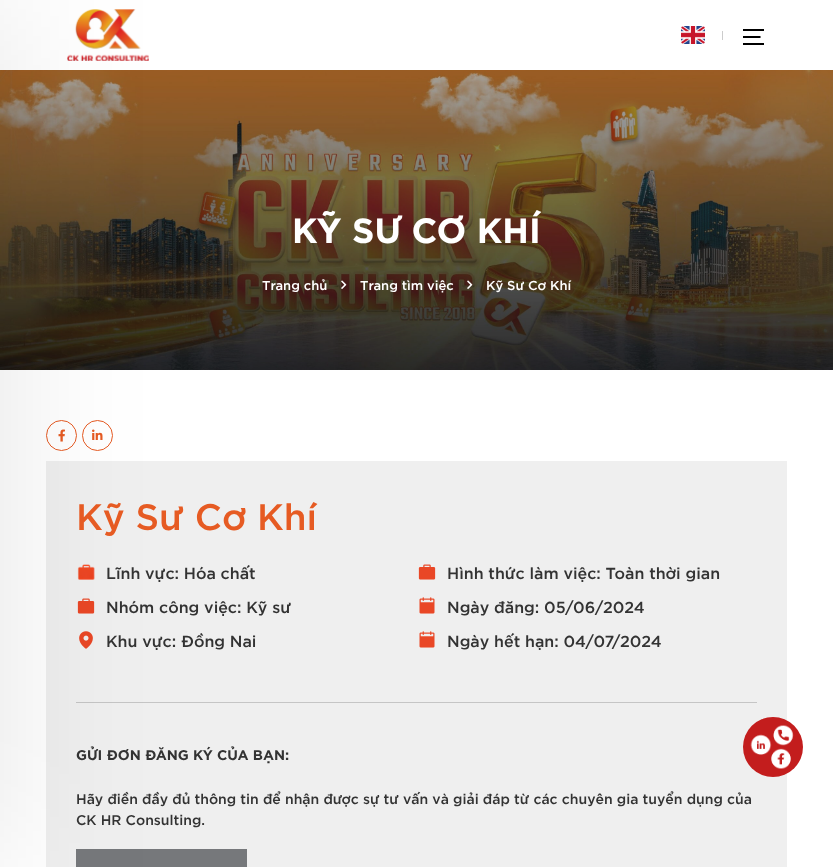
<svg xmlns="http://www.w3.org/2000/svg" width="833" height="867" viewBox="0 0 833 867">
  <rect width="100%" height="100%" fill="rgb(255,255,255)"/>
  <image x="67" y="9" width="82" height="52" href="pic1.png"/>
  <image x="0" y="70" width="833" height="300" href="pic3.png"/>
  <circle cx="61.5" cy="435.5" r="15" fill="none" stroke="rgb(230,91,35)"/>
  <image x="58" y="429" width="7" height="13" href="pic6.png"/>
  <circle cx="97.5" cy="435.5" r="15" fill="none" stroke="rgb(230,91,35)"/>
  <image x="92" y="429" width="11" height="11" href="pic7.png"/>
  <rect x="46" y="461" width="741" height="406" fill="rgb(239,239,239)"/>
  <image x="77" y="564" width="18" height="16" href="pic8.png"/>
  <image x="77" y="598" width="18" height="16" href="pic9.png"/>
  <image x="79" y="631" width="14" height="18" href="pic11.png"/>
  <rect x="76" y="702" width="681" height="1" fill="rgb(197,197,197)"/>
  <rect x="76" y="849" width="171" height="18" fill="rgb(118,120,123)"/>
  <rect x="-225" y="0" width="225" height="867" fill="rgba(0,0,0,0.1)" filter="blur(75px)"/>
  <image x="681" y="26" width="24" height="18" href="pic2.png"/>
  <rect x="722" y="31" width="1" height="9" fill="rgb(204,204,204)"/>
  <path d="M743 30H764M743 37H760.5M743 44H764" fill="none" stroke="rgb(0,0,0)" stroke-width="1.8"/>
  <text x="292" y="243" font-family="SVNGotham" font-size="35" font-weight="bold" fill="rgb(255,255,255)">KỸ SƯ CƠ KHÍ</text>
  <text x="262" y="290" font-family="SVNGotham" font-size="13" fill="rgb(255,255,255)">Trang chủ</text>
  <image x="341" y="280" width="6" height="9" href="pic4.png"/>
  <text x="360" y="290" font-family="SVNGotham" font-size="13" fill="rgb(255,255,255)">Trang tìm việc</text>
  <image x="467" y="280" width="6" height="9" href="pic5.png"/>
  <text x="486" y="290" font-family="SVNGotham" font-size="13" fill="rgb(255,255,255)">Kỹ Sư Cơ Khí</text>
  <text x="76" y="530" font-family="SVNGotham" font-size="36.75" fill="rgb(230,91,35)">Kỹ Sư Cơ Khí</text>
  <text x="106" y="579" font-family="SVNGotham" font-size="16" fill="rgb(51,51,51)">Lĩnh vực: Hóa chất</text>
  <image x="418" y="564" width="18" height="16" href="pic9.png"/>
  <g font-family="SVNGotham" font-size="16" fill="rgb(51,51,51)">
    <text x="447" y="579">Hình thức làm việc: Toàn thời gian</text>
    <text x="106" y="613">Nhóm công việc: Kỹ sư</text>
  </g>
  <image x="419" y="597" width="16" height="17" href="pic10.png"/>
  <g font-family="SVNGotham" font-size="16" fill="rgb(51,51,51)">
    <text x="447" y="613">Ngày đăng: 05/06/2024</text>
    <text x="106" y="647">Khu vực: Đồng Nai</text>
  </g>
  <image x="419" y="631" width="16" height="17" href="pic10.png"/>
  <text x="447" y="647" font-family="SVNGotham" font-size="16" fill="rgb(51,51,51)">Ngày hết hạn: 04/07/2024</text>
  <text x="76" y="760" font-family="SVNGotham" font-size="14" font-weight="bold" fill="rgb(51,51,51)">GỬI ĐƠN ĐĂNG KÝ CỦA BẠN:</text>
  <g font-family="SVNGotham" font-size="14" fill="rgb(51,51,51)">
    <text>
      <tspan x="76" y="804">Hãy điền đầy đủ thông tin để nhận được sự tư vấn và giải đáp từ các chuyên gia tuyển dụng của</tspan>
      <tspan x="76" y="825">CK HR Consulting.</tspan>
    </text>
  </g>
  <circle cx="773" cy="747" r="30" fill="rgb(195,29,29)"/>
  <image x="750" y="725" width="44" height="44" href="pic12.png"/>
</svg>
